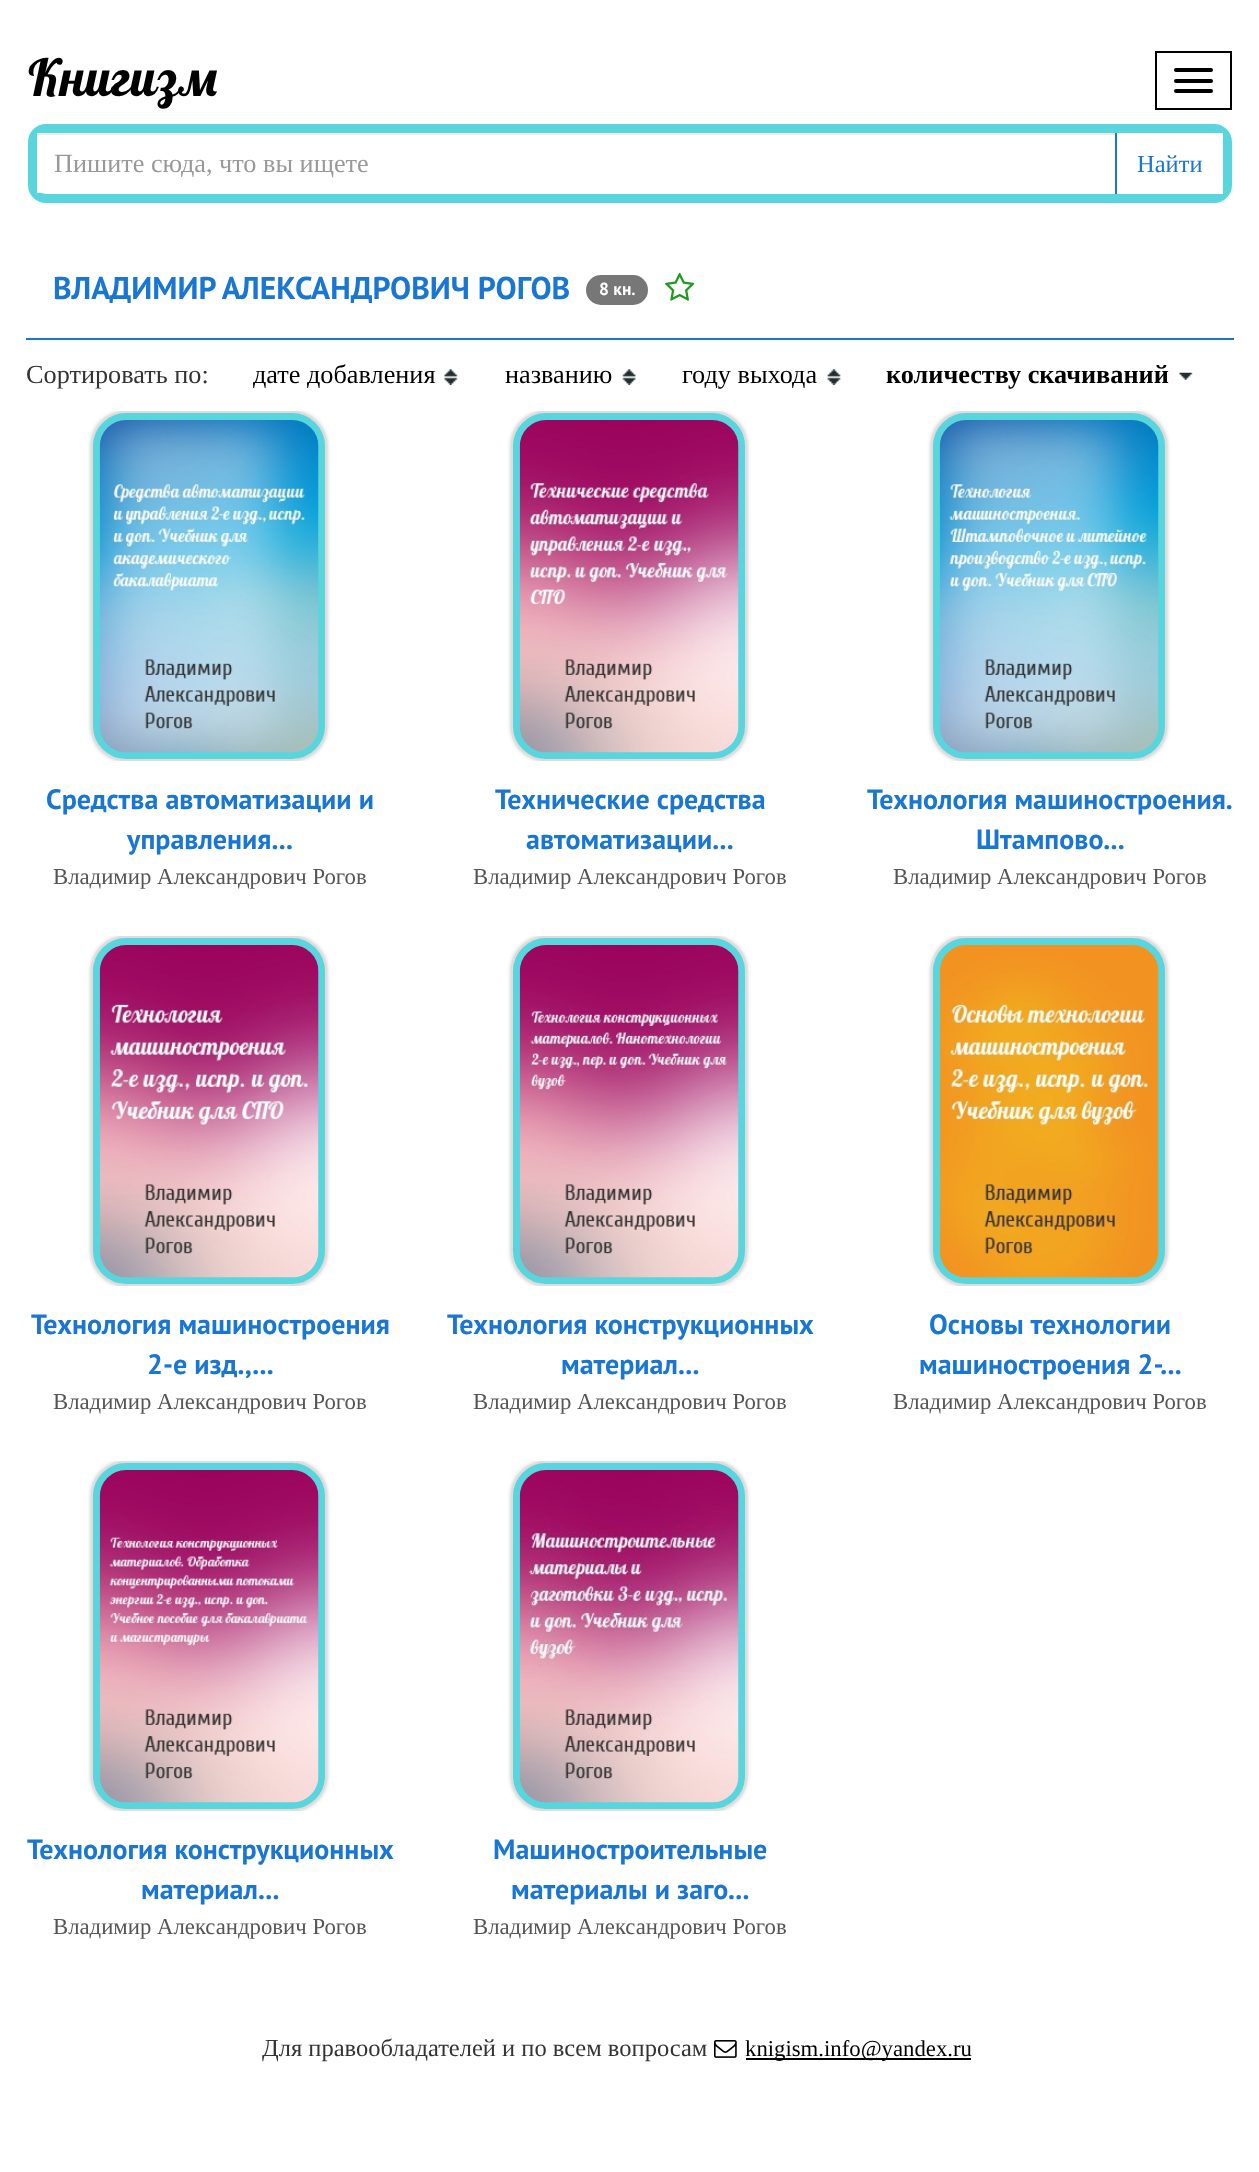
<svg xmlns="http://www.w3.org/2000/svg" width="1259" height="2172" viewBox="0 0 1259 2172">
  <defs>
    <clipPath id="clip1"><rect x="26" y="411" width="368" height="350"/></clipPath>
    <clipPath id="clip2"><rect x="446" y="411" width="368" height="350"/></clipPath>
    <clipPath id="clip3"><rect x="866" y="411" width="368" height="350"/></clipPath>
    <clipPath id="clip4"><rect x="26" y="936" width="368" height="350"/></clipPath>
    <clipPath id="clip5"><rect x="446" y="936" width="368" height="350"/></clipPath>
    <clipPath id="clip6"><rect x="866" y="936" width="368" height="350"/></clipPath>
    <clipPath id="clip7"><rect x="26" y="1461" width="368" height="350"/></clipPath>
    <clipPath id="clip8"><rect x="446" y="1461" width="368" height="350"/></clipPath>
  </defs>
  <rect width="100%" height="100%" fill="rgb(255,255,255)"/>
  <text x="28" y="96" font-family="Lobster" font-size="51" fill="rgb(0,0,0)">Книгизм</text>
  <rect x="1156" y="52" width="75" height="57" fill="none" stroke="rgb(0,0,0)" stroke-width="2"/>
  <rect x="1174" y="68" width="39" height="4" rx="2" fill="rgb(0,0,0)"/>
  <rect x="1174" y="79" width="39" height="4" rx="2" fill="rgb(0,0,0)"/>
  <rect x="1174" y="89" width="39" height="4" rx="2" fill="rgb(0,0,0)"/>
  <rect x="32.5" y="128.5" width="1195" height="70" rx="13.5" fill="none" stroke="rgb(89,213,222)" stroke-width="9"/>
  <rect x="37" y="135" width="5" height="58" fill="rgb(255,255,255)"/>
  <rect x="37" y="133" width="1078" height="2" fill="rgb(236,236,236)"/>
  <text x="54" y="172" font-family="Liberation Serif" font-size="26.25" fill="rgb(153,153,153)">Пишите сюда, что вы ищете</text>
  <rect x="1214" y="133" width="9" height="61" fill="rgb(255,255,255)"/>
  <rect x="1115" y="133" width="2" height="61" fill="rgb(25,118,210)"/>
  <text x="1137" y="172" font-family="Liberation Serif" font-size="24.5" fill="rgb(25,118,210)">Найти</text>
  <rect x="26" y="338" width="1208" height="2" fill="rgb(25,118,210)"/>
  <text x="53" y="299" font-family="PT Sans" font-size="31.5" font-weight="bold" fill="rgb(25,118,210)">ВЛАДИМИР АЛЕКСАНДРОВИЧ РОГОВ</text>
  <rect x="586" y="275" width="62" height="30" rx="15" fill="rgb(119,119,119)"/>
  <text x="599" y="295" font-family="PT Sans" font-size="17.5" font-weight="bold" fill="rgb(255,255,255)">8 кн.</text>
  <image x="665" y="272" width="30" height="29" href="pic1.png"/>
  <text x="26" y="383" font-family="Liberation Serif" font-size="26.25" fill="rgb(51,51,51)">Сортировать по:</text>
  <text x="253" y="383" font-family="Liberation Serif" font-size="26.25" fill="rgb(0,0,0)">дате добавления</text>
  <image x="444" y="369" width="14" height="16" href="pic2.png"/>
  <text x="505" y="383" font-family="Liberation Serif" font-size="26.25" fill="rgb(0,0,0)">названию</text>
  <image x="622" y="369" width="14" height="16" href="pic3.png"/>
  <text x="682" y="383" font-family="Liberation Serif" font-size="26.25" fill="rgb(0,0,0)">году выхода</text>
  <image x="827" y="369" width="14" height="16" href="pic4.png"/>
  <text x="886" y="383" font-family="Liberation Serif" font-size="26.25" font-weight="bold" fill="rgb(0,0,0)">количеству скачиваний</text>
  <image x="1179" y="372" width="14" height="8" href="pic5.png"/>
  <g clip-path="url(#clip1)">
    <rect x="91" y="411" width="236" height="350" rx="35" fill="rgba(0,0,0,0.25)" filter="blur(2px)"/>
  </g>
  <rect x="92" y="412" width="234" height="348" rx="34" fill="rgb(89,213,222)" stroke="rgb(221,221,221)" stroke-width="2"/>
  <image x="99" y="420" width="220" height="333" href="pic6.png"/>
  <g font-family="PT Sans" font-size="28" font-weight="bold" fill="rgb(25,118,210)">
    <text x="46" y="809">Средства автоматизации и</text>
    <text x="127" y="849">управления...</text>
  </g>
  <text x="53" y="884" font-family="Liberation Serif" font-size="22.75" fill="rgb(85,85,85)">Владимир Александрович Рогов</text>
  <g clip-path="url(#clip2)">
    <rect x="511" y="411" width="236" height="350" rx="35" fill="rgba(0,0,0,0.25)" filter="blur(2px)"/>
  </g>
  <rect x="512" y="412" width="234" height="348" rx="34" fill="rgb(89,213,222)" stroke="rgb(221,221,221)" stroke-width="2"/>
  <image x="519" y="420" width="220" height="333" href="pic7.png"/>
  <g font-family="PT Sans" font-size="28" font-weight="bold" fill="rgb(25,118,210)">
    <text x="495" y="809">Технические средства</text>
    <text x="526" y="849">автоматизации...</text>
  </g>
  <text x="473" y="884" font-family="Liberation Serif" font-size="22.75" fill="rgb(85,85,85)">Владимир Александрович Рогов</text>
  <g clip-path="url(#clip3)">
    <rect x="931" y="411" width="236" height="350" rx="35" fill="rgba(0,0,0,0.25)" filter="blur(2px)"/>
  </g>
  <rect x="932" y="412" width="234" height="348" rx="34" fill="rgb(89,213,222)" stroke="rgb(221,221,221)" stroke-width="2"/>
  <image x="939" y="420" width="220" height="333" href="pic8.png"/>
  <g font-family="PT Sans" font-size="28" font-weight="bold" fill="rgb(25,118,210)">
    <text x="867" y="809">Технология машиностроения.</text>
    <text x="976" y="849">Штампово...</text>
  </g>
  <text x="893" y="884" font-family="Liberation Serif" font-size="22.75" fill="rgb(85,85,85)">Владимир Александрович Рогов</text>
  <g clip-path="url(#clip4)">
    <rect x="91" y="936" width="236" height="350" rx="35" fill="rgba(0,0,0,0.25)" filter="blur(2px)"/>
  </g>
  <rect x="92" y="937" width="234" height="348" rx="34" fill="rgb(89,213,222)" stroke="rgb(221,221,221)" stroke-width="2"/>
  <image x="99" y="945" width="220" height="333" href="pic9.png"/>
  <g font-family="PT Sans" font-size="28" font-weight="bold" fill="rgb(25,118,210)">
    <text x="31" y="1334">Технология машиностроения</text>
    <text x="147" y="1374">2-е изд.,...</text>
  </g>
  <text x="53" y="1409" font-family="Liberation Serif" font-size="22.75" fill="rgb(85,85,85)">Владимир Александрович Рогов</text>
  <g clip-path="url(#clip5)">
    <rect x="511" y="936" width="236" height="350" rx="35" fill="rgba(0,0,0,0.25)" filter="blur(2px)"/>
  </g>
  <rect x="512" y="937" width="234" height="348" rx="34" fill="rgb(89,213,222)" stroke="rgb(221,221,221)" stroke-width="2"/>
  <image x="519" y="945" width="220" height="333" href="pic10.png"/>
  <g font-family="PT Sans" font-size="28" font-weight="bold" fill="rgb(25,118,210)">
    <text x="447" y="1334">Технология конструкционных</text>
    <text x="561" y="1374">материал...</text>
  </g>
  <text x="473" y="1409" font-family="Liberation Serif" font-size="22.75" fill="rgb(85,85,85)">Владимир Александрович Рогов</text>
  <g clip-path="url(#clip6)">
    <rect x="931" y="936" width="236" height="350" rx="35" fill="rgba(0,0,0,0.25)" filter="blur(2px)"/>
  </g>
  <rect x="932" y="937" width="234" height="348" rx="34" fill="rgb(89,213,222)" stroke="rgb(221,221,221)" stroke-width="2"/>
  <image x="939" y="945" width="220" height="333" href="pic11.png"/>
  <g font-family="PT Sans" font-size="28" font-weight="bold" fill="rgb(25,118,210)">
    <text x="929" y="1334">Основы технологии</text>
    <text x="919" y="1374">машиностроения 2-...</text>
  </g>
  <text x="893" y="1409" font-family="Liberation Serif" font-size="22.75" fill="rgb(85,85,85)">Владимир Александрович Рогов</text>
  <g clip-path="url(#clip7)">
    <rect x="91" y="1461" width="236" height="350" rx="35" fill="rgba(0,0,0,0.25)" filter="blur(2px)"/>
  </g>
  <rect x="92" y="1462" width="234" height="348" rx="34" fill="rgb(89,213,222)" stroke="rgb(221,221,221)" stroke-width="2"/>
  <image x="99" y="1470" width="220" height="333" href="pic12.png"/>
  <g font-family="PT Sans" font-size="28" font-weight="bold" fill="rgb(25,118,210)">
    <text x="27" y="1859">Технология конструкционных</text>
    <text x="141" y="1899">материал...</text>
  </g>
  <text x="53" y="1934" font-family="Liberation Serif" font-size="22.75" fill="rgb(85,85,85)">Владимир Александрович Рогов</text>
  <g clip-path="url(#clip8)">
    <rect x="511" y="1461" width="236" height="350" rx="35" fill="rgba(0,0,0,0.25)" filter="blur(2px)"/>
  </g>
  <rect x="512" y="1462" width="234" height="348" rx="34" fill="rgb(89,213,222)" stroke="rgb(221,221,221)" stroke-width="2"/>
  <image x="519" y="1470" width="220" height="333" href="pic13.png"/>
  <g font-family="PT Sans" font-size="28" font-weight="bold" fill="rgb(25,118,210)">
    <text x="493" y="1859">Машиностроительные</text>
    <text x="511" y="1899">материалы и заго...</text>
  </g>
  <text x="473" y="1934" font-family="Liberation Serif" font-size="22.75" fill="rgb(85,85,85)">Владимир Александрович Рогов</text>
  <text x="262" y="2056" font-family="Liberation Serif" font-size="24.5" fill="rgb(51,51,51)">Для правообладателей и по всем вопросам</text>
  <image x="714" y="2040" width="23" height="18" href="pic14.png"/>
  <rect x="746" y="2058" width="225" height="2" fill="rgb(0,0,0)"/>
  <text x="745" y="2056" font-family="Liberation Serif" font-size="22.75" fill="rgb(0,0,0)">knigism.info@yandex.ru</text>
</svg>
